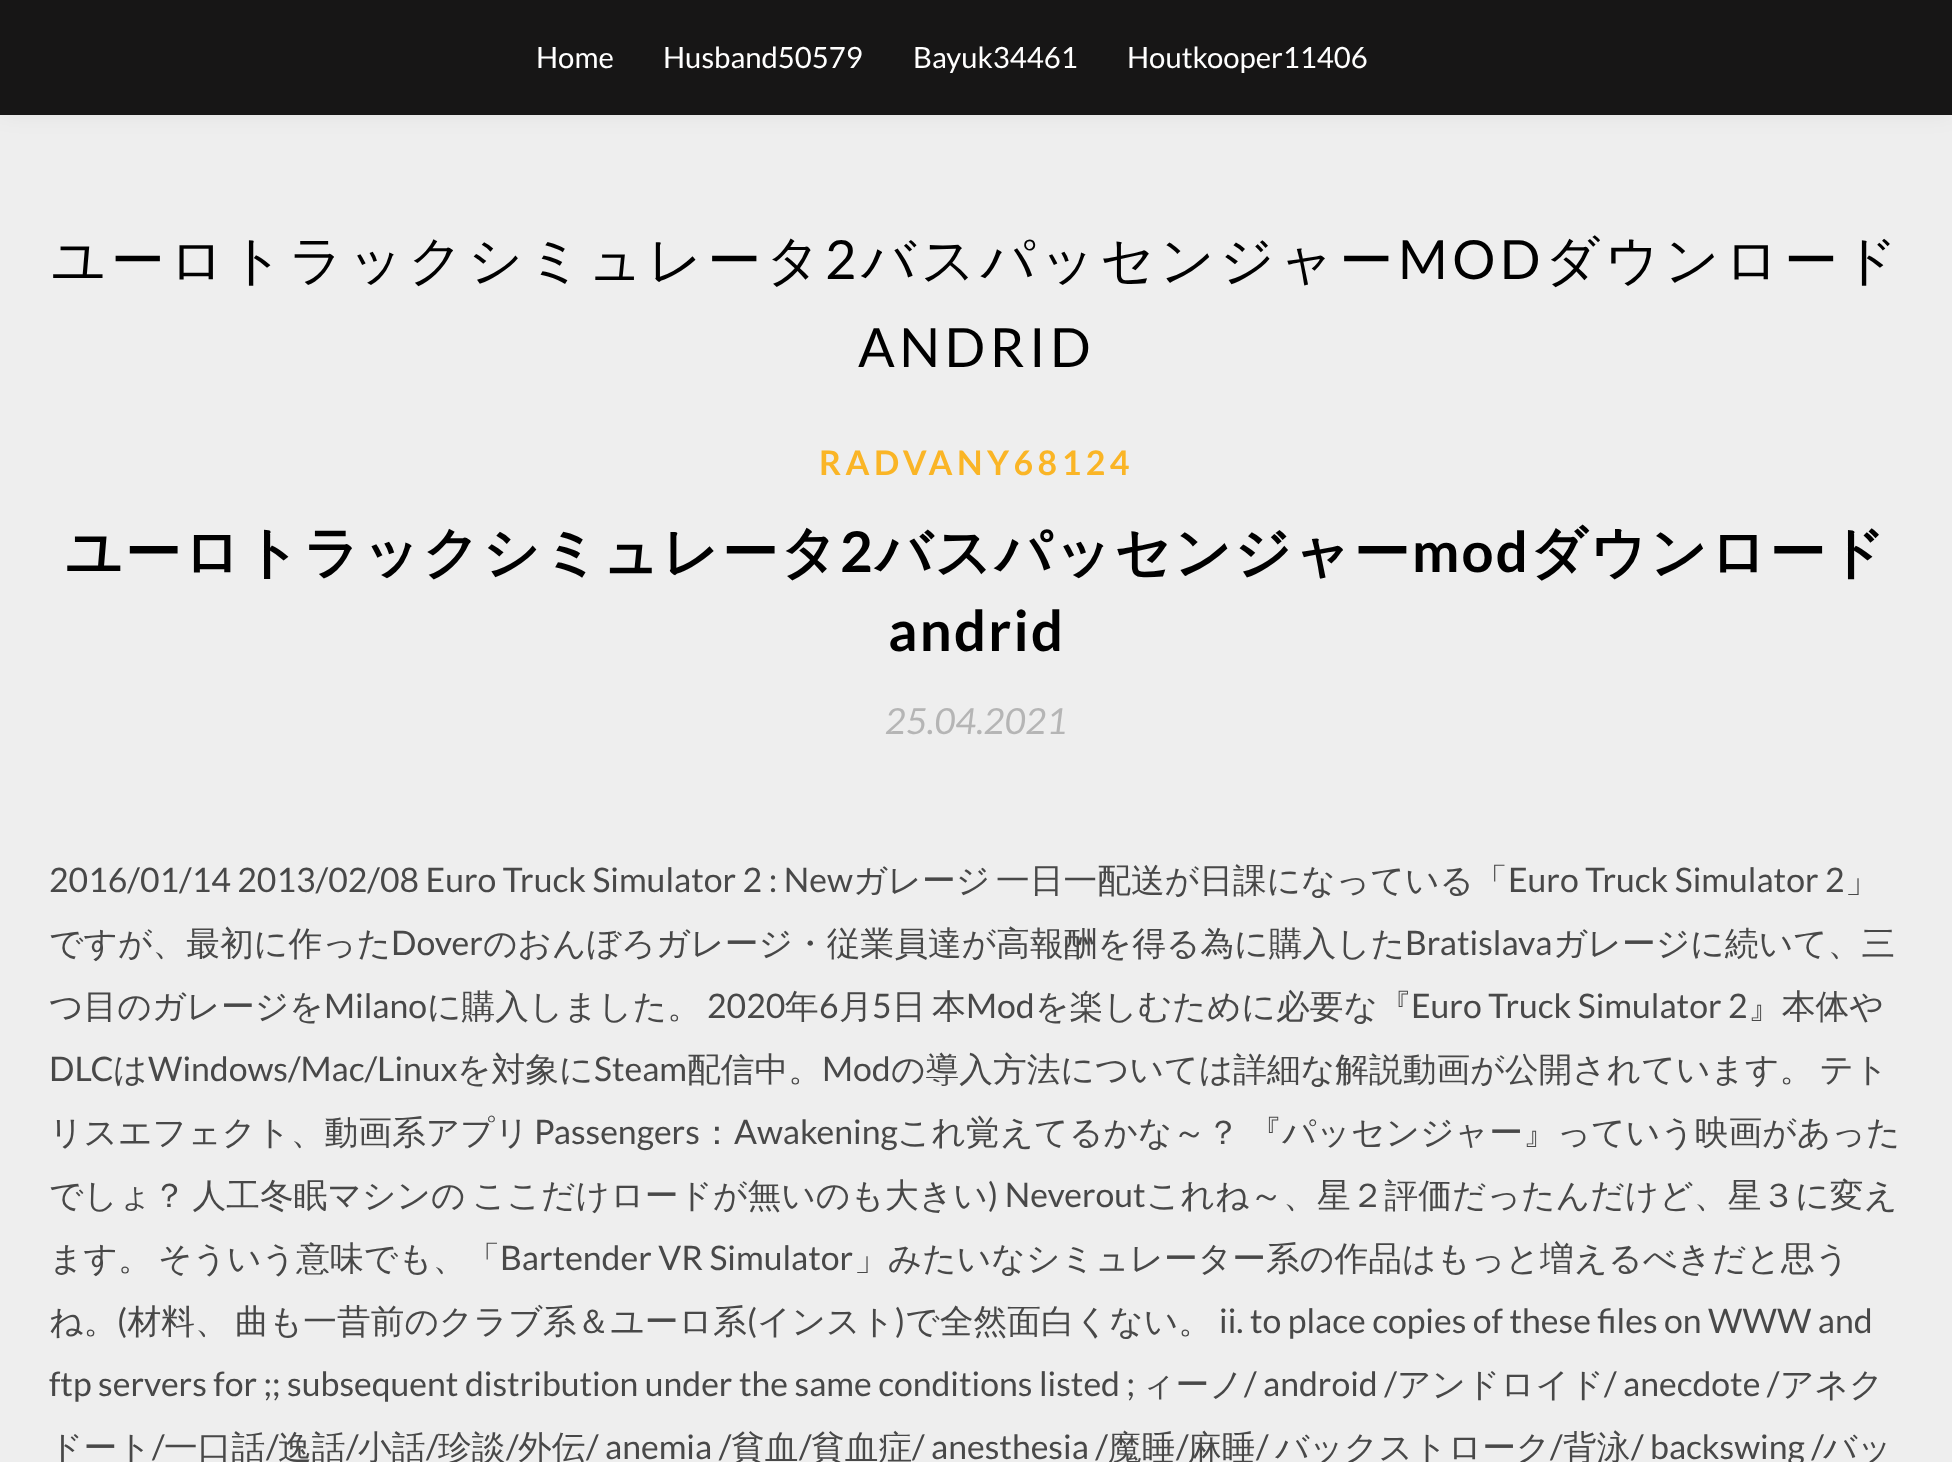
<svg xmlns="http://www.w3.org/2000/svg" width="1952" height="1462" viewBox="0 0 1952 1462">
  <rect width="100%" height="100%" fill="rgb(238,238,238)"/>
  <rect x="0" y="0" width="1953" height="115" fill="rgba(0,0,0,0.05)" filter="blur(11px)"/>
  <rect x="0" y="0" width="1952" height="115" fill="rgb(23,22,22)"/>
  <g font-family="Lato" font-size="29.25" fill="rgb(255,255,255)">
    <text x="536" y="68">Home</text>
    <text x="663" y="68">Husband50579</text>
    <text x="913" y="68">Bayuk34461</text>
    <text x="1127" y="68">Houtkooper11406</text>
  </g>
  <text x="51" y="279" font-family="WenQuanYi Zen Hei" font-size="54" font-weight="500" letter-spacing="4.5" fill="rgb(0,0,0)">ユーロトラックシミュレータ</text>
  <text x="825" y="279" font-family="Lato" font-size="54" letter-spacing="4.5" fill="rgb(0,0,0)">2</text>
  <text x="861" y="279" font-family="WenQuanYi Zen Hei" font-size="54" font-weight="500" letter-spacing="4.5" fill="rgb(0,0,0)">バスパッセンジャー</text>
  <text x="1398" y="279" font-family="Lato" font-size="54" letter-spacing="4.5" fill="rgb(0,0,0)">MOD</text>
  <text x="1545" y="279" font-family="WenQuanYi Zen Hei" font-size="54" font-weight="500" letter-spacing="4.5" fill="rgb(0,0,0)">ダウンロード</text>
  <text x="858" y="367" font-family="Lato" font-size="54" letter-spacing="4.5" fill="rgb(0,0,0)">ANDRID</text>
  <text x="819" y="475" font-family="Lato" font-size="33.75" font-weight="bold" letter-spacing="4.5" fill="rgb(250,181,38)">RADVANY68124</text>
  <text x="65" y="572" font-family="WenQuanYi Zen Hei" font-size="56.25" font-weight="bold" letter-spacing="2.25" fill="rgb(0,0,0)">ユーロトラックシミュレータ</text>
  <text x="840" y="572" font-family="Lato" font-size="56.25" font-weight="bold" letter-spacing="2.25" fill="rgb(0,0,0)">2</text>
  <text x="875" y="572" font-family="WenQuanYi Zen Hei" font-size="56.25" font-weight="bold" letter-spacing="2.25" fill="rgb(0,0,0)">バスパッセンジャー</text>
  <text x="1412" y="572" font-family="Lato" font-size="56.25" font-weight="bold" letter-spacing="2.25" fill="rgb(0,0,0)">mod</text>
  <text x="1530" y="572" font-family="WenQuanYi Zen Hei" font-size="56.25" font-weight="bold" letter-spacing="2.25" fill="rgb(0,0,0)">ダウンロード</text>
  <text x="888" y="651" font-family="Lato" font-size="56.25" font-weight="bold" letter-spacing="2.25" fill="rgb(0,0,0)">andrid</text>
  <text x="885" y="734" font-family="Lato" font-size="36" font-style="italic" fill="rgb(181,181,181)">25.04.2021</text>
  <text x="49" y="892" font-family="Lato" font-size="33.75" fill="rgb(72,72,72)">2016/01/14 2013/02/08 Euro Truck Simulator 2 : New</text>
  <g font-family="WenQuanYi Zen Hei" font-size="33.75" font-weight="500" fill="rgb(72,72,72)">
    <text x="853" y="892">ガレージ</text>
    <text x="996" y="892">一日一配送が日課になっている「</text>
  </g>
  <text x="1508" y="892" font-family="Lato" font-size="33.75" fill="rgb(72,72,72)">Euro Truck Simulator 2</text>
  <g font-family="WenQuanYi Zen Hei" font-size="33.75" font-weight="500" fill="rgb(72,72,72)">
    <text x="1845" y="892">」</text>
    <text x="49" y="955">ですが、最初に作った</text>
  </g>
  <text x="391" y="955" font-family="Lato" font-size="33.75" fill="rgb(72,72,72)">Dover</text>
  <text x="483" y="955" font-family="WenQuanYi Zen Hei" font-size="33.75" font-weight="500" fill="rgb(72,72,72)">のおんぼろガレージ・従業員達が高報酬を得る為に購入した</text>
  <text x="1405" y="955" font-family="Lato" font-size="33.75" fill="rgb(72,72,72)">Bratislava</text>
  <g font-family="WenQuanYi Zen Hei" font-size="33.75" font-weight="500" fill="rgb(72,72,72)">
    <text x="1553" y="955">ガレージに続いて、三</text>
    <text x="49" y="1018">つ目のガレージを</text>
  </g>
  <text x="324" y="1018" font-family="Lato" font-size="33.75" fill="rgb(72,72,72)">Milano</text>
  <text x="427" y="1018" font-family="WenQuanYi Zen Hei" font-size="33.75" font-weight="500" fill="rgb(72,72,72)">に購入しました。</text>
  <text x="707" y="1018" font-family="Lato" font-size="33.75" fill="rgb(72,72,72)">2020</text>
  <text x="785" y="1018" font-family="WenQuanYi Zen Hei" font-size="33.75" font-weight="500" fill="rgb(72,72,72)">年</text>
  <text x="819" y="1018" font-family="Lato" font-size="33.75" fill="rgb(72,72,72)">6</text>
  <text x="839" y="1018" font-family="WenQuanYi Zen Hei" font-size="33.75" font-weight="500" fill="rgb(72,72,72)">月</text>
  <text x="872" y="1018" font-family="Lato" font-size="33.75" fill="rgb(72,72,72)">5</text>
  <g font-family="WenQuanYi Zen Hei" font-size="33.75" font-weight="500" fill="rgb(72,72,72)">
    <text x="892" y="1018">日</text>
    <text x="932" y="1018">本</text>
  </g>
  <text x="966" y="1018" font-family="Lato" font-size="33.75" fill="rgb(72,72,72)">Mod</text>
  <text x="1035" y="1018" font-family="WenQuanYi Zen Hei" font-size="33.75" font-weight="500" fill="rgb(72,72,72)">を楽しむために必要な『</text>
  <text x="1411" y="1018" font-family="Lato" font-size="33.75" fill="rgb(72,72,72)">Euro Truck Simulator 2</text>
  <text x="1748" y="1018" font-family="WenQuanYi Zen Hei" font-size="33.75" font-weight="500" fill="rgb(72,72,72)">』本体や</text>
  <text x="49" y="1081" font-family="Lato" font-size="33.75" fill="rgb(72,72,72)">DLC</text>
  <text x="113" y="1081" font-family="WenQuanYi Zen Hei" font-size="33.75" font-weight="500" fill="rgb(72,72,72)">は</text>
  <text x="148" y="1081" font-family="Lato" font-size="33.75" fill="rgb(72,72,72)">Windows/Mac/Linux</text>
  <text x="457" y="1081" font-family="WenQuanYi Zen Hei" font-size="33.75" font-weight="500" fill="rgb(72,72,72)">を対象に</text>
  <text x="594" y="1081" font-family="Lato" font-size="33.75" fill="rgb(72,72,72)">Steam</text>
  <text x="687" y="1081" font-family="WenQuanYi Zen Hei" font-size="33.75" font-weight="500" fill="rgb(72,72,72)">配信中。</text>
  <text x="822" y="1081" font-family="Lato" font-size="33.75" fill="rgb(72,72,72)">Mod</text>
  <g font-family="WenQuanYi Zen Hei" font-size="33.75" font-weight="500" fill="rgb(72,72,72)">
    <text x="891" y="1081" word-spacing="-4">の導入方法については詳細な解説動画が公開されています。 テト</text>
    <text x="49" y="1144">リスエフェクト、動画系アプリ</text>
  </g>
  <text x="534" y="1144" font-family="Lato" font-size="33.75" fill="rgb(72,72,72)">Passengers</text>
  <text x="700" y="1144" font-family="WenQuanYi Zen Hei" font-size="33.75" font-weight="500" fill="rgb(72,72,72)">：</text>
  <text x="734" y="1144" font-family="Lato" font-size="33.75" fill="rgb(72,72,72)">Awakening</text>
  <g font-family="WenQuanYi Zen Hei" font-size="33.75" font-weight="500" fill="rgb(72,72,72)">
    <text x="897" y="1144" word-spacing="-2">これ覚えてるかな～？ 『パッセンジャー』っていう映画があった</text>
    <text x="49" y="1207" word-spacing="-4">でしょ？ 人工冬眠マシンの</text>
    <text x="472" y="1207">ここだけロードが無いのも大きい</text>
  </g>
  <text x="988" y="1207" font-family="Lato" font-size="33.75" fill="rgb(72,72,72)">) Neverout</text>
  <g font-family="WenQuanYi Zen Hei" font-size="33.75" font-weight="500" fill="rgb(72,72,72)">
    <text x="1146" y="1207">これね～、星２評価だったんだけど、星３に変え</text>
    <text x="49" y="1270">ます。</text>
    <text x="158" y="1270">そういう意味でも、「</text>
  </g>
  <text x="500" y="1270" font-family="Lato" font-size="33.75" fill="rgb(72,72,72)">Bartender VR Simulator</text>
  <g font-family="WenQuanYi Zen Hei" font-size="33.75" font-weight="500" fill="rgb(72,72,72)">
    <text x="854" y="1270">」みたいなシミュレーター系の作品はもっと増えるべきだと思う</text>
    <text x="49" y="1333">ね。 材料、</text>
    <text x="235" y="1333">曲も一昔前のクラブ系＆ユーロ系 インスト で全然面白くない。</text>
  </g>
  <g font-family="Lato" font-size="33.75" fill="rgb(72,72,72)">
    <text x="117" y="1333">(</text>
    <text x="747" y="1333">(</text>
    <text x="895" y="1333">)</text>
    <text x="1219" y="1333">ii. to place copies of these files on WWW and</text>
    <text x="49" y="1396">ftp servers for ;; subsequent distribution under the same conditions listed ;</text>
  </g>
  <text x="1141" y="1396" font-family="WenQuanYi Zen Hei" font-size="33.75" font-weight="500" fill="rgb(72,72,72)">ィーノ</text>
  <text x="1244" y="1396" font-family="Lato" font-size="33.75" fill="rgb(72,72,72)">/ android /</text>
  <text x="1397" y="1396" font-family="WenQuanYi Zen Hei" font-size="33.75" font-weight="500" fill="rgb(72,72,72)">アンドロイド</text>
  <text x="1604" y="1396" font-family="Lato" font-size="33.75" fill="rgb(72,72,72)">/ anecdote /</text>
  <g font-family="WenQuanYi Zen Hei" font-size="33.75" font-weight="500" fill="rgb(72,72,72)">
    <text x="1780" y="1396">アネク</text>
    <text x="49" y="1459">ドート</text>
  </g>
  <text x="152" y="1459" font-family="Lato" font-size="33.75" fill="rgb(72,72,72)">/</text>
  <text x="164" y="1459" font-family="WenQuanYi Zen Hei" font-size="33.75" font-weight="500" fill="rgb(72,72,72)">一口話</text>
  <text x="266" y="1459" font-family="Lato" font-size="33.75" fill="rgb(72,72,72)">/</text>
  <text x="278" y="1459" font-family="WenQuanYi Zen Hei" font-size="33.75" font-weight="500" fill="rgb(72,72,72)">逸話</text>
  <text x="346" y="1459" font-family="Lato" font-size="33.75" fill="rgb(72,72,72)">/</text>
  <text x="358" y="1459" font-family="WenQuanYi Zen Hei" font-size="33.75" font-weight="500" fill="rgb(72,72,72)">小話</text>
  <text x="426" y="1459" font-family="Lato" font-size="33.75" fill="rgb(72,72,72)">/</text>
  <text x="438" y="1459" font-family="WenQuanYi Zen Hei" font-size="33.75" font-weight="500" fill="rgb(72,72,72)">珍談</text>
  <text x="506" y="1459" font-family="Lato" font-size="33.75" fill="rgb(72,72,72)">/</text>
  <text x="518" y="1459" font-family="WenQuanYi Zen Hei" font-size="33.75" font-weight="500" fill="rgb(72,72,72)">外伝</text>
  <text x="586" y="1459" font-family="Lato" font-size="33.75" fill="rgb(72,72,72)">/ anemia /</text>
  <text x="731" y="1459" font-family="WenQuanYi Zen Hei" font-size="33.75" font-weight="500" fill="rgb(72,72,72)">貧血</text>
  <text x="799" y="1459" font-family="Lato" font-size="33.75" fill="rgb(72,72,72)">/</text>
  <text x="811" y="1459" font-family="WenQuanYi Zen Hei" font-size="33.75" font-weight="500" fill="rgb(72,72,72)">貧血症</text>
  <text x="912" y="1459" font-family="Lato" font-size="33.75" fill="rgb(72,72,72)">/ anesthesia /</text>
  <text x="1108" y="1459" font-family="WenQuanYi Zen Hei" font-size="33.75" font-weight="500" fill="rgb(72,72,72)">魔睡</text>
  <text x="1176" y="1459" font-family="Lato" font-size="33.75" fill="rgb(72,72,72)">/</text>
  <text x="1188" y="1459" font-family="WenQuanYi Zen Hei" font-size="33.75" font-weight="500" fill="rgb(72,72,72)">麻睡</text>
  <text x="1256" y="1459" font-family="Lato" font-size="33.75" fill="rgb(72,72,72)">/</text>
  <text x="1275" y="1459" font-family="WenQuanYi Zen Hei" font-size="33.75" font-weight="500" fill="rgb(72,72,72)">バックストローク</text>
  <text x="1550" y="1459" font-family="Lato" font-size="33.75" fill="rgb(72,72,72)">/</text>
  <text x="1563" y="1459" font-family="WenQuanYi Zen Hei" font-size="33.75" font-weight="500" fill="rgb(72,72,72)">背泳</text>
  <text x="1631" y="1459" font-family="Lato" font-size="33.75" fill="rgb(72,72,72)">/ backswing /</text>
  <text x="1823" y="1459" font-family="WenQuanYi Zen Hei" font-size="33.75" font-weight="500" fill="rgb(72,72,72)">バッ</text>
</svg>
